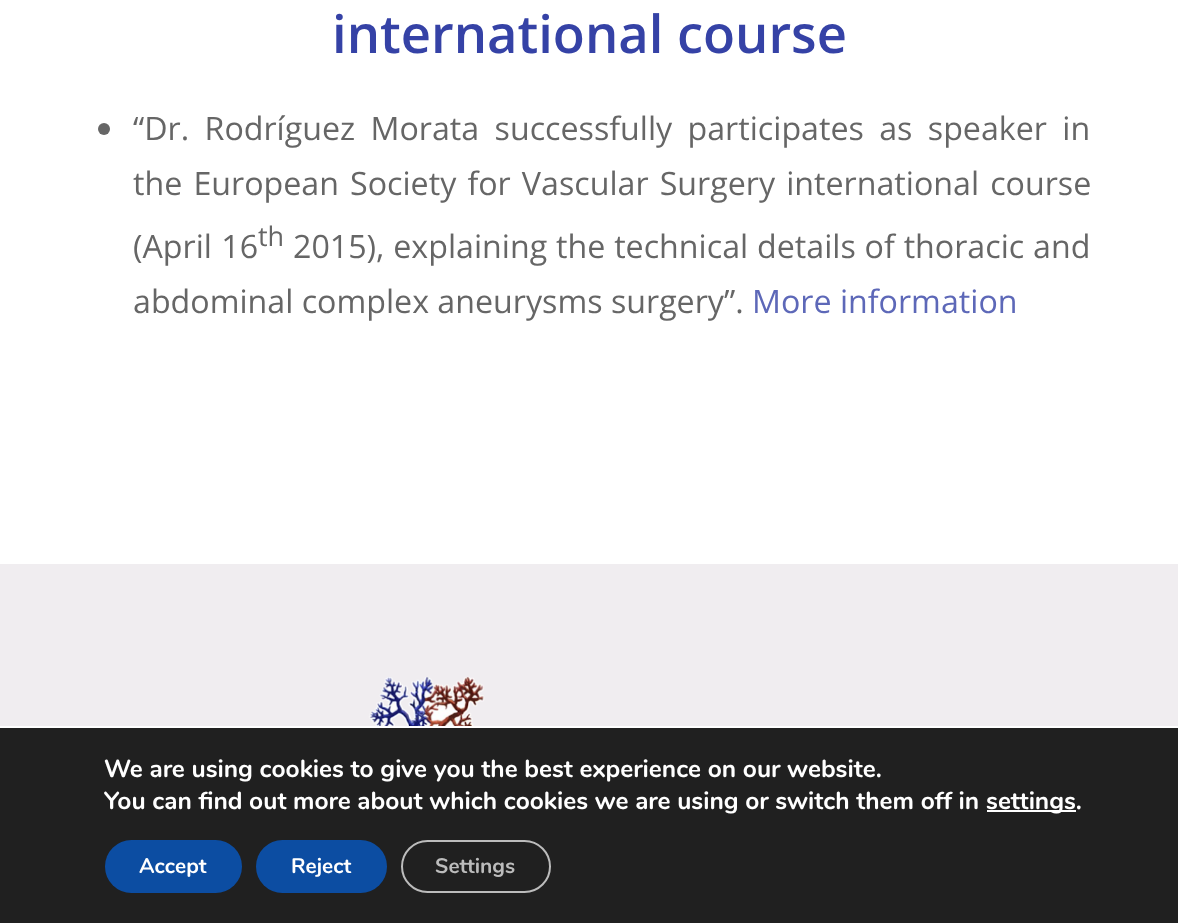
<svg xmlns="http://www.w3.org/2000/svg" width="1178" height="923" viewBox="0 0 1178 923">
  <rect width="100%" height="100%" fill="rgb(255,255,255)"/>
  <text x="332" y="53" font-family="Open Sans" font-size="52.5" font-weight="600" fill="rgb(53,66,166)">international course</text>
  <circle cx="104" cy="129" r="6" fill="rgb(102,102,102)"/>
  <g font-family="Open Sans" font-size="32.2" fill="rgb(102,102,102)">
    <text>
      <tspan x="133" y="140" word-spacing="7">“Dr. Rodríguez Morata successfully participates as speaker in</tspan>
      <tspan x="133" y="195" word-spacing="2.75">the European Society for Vascular Surgery international course</tspan>
      <tspan x="133" y="258" word-spacing="1">(April 16</tspan>
    </text>
  </g>
  <text x="258" y="246" font-family="Open Sans" font-size="27" fill="rgb(102,102,102)">th</text>
  <g font-family="Open Sans" font-size="32.2" fill="rgb(102,102,102)">
    <text x="293" y="258" word-spacing="0.5">2015), explaining the technical details of thoracic and</text>
    <text x="133" y="313">abdominal complex aneurysms surgery”.</text>
  </g>
  <text x="752" y="313" font-family="Open Sans" font-size="32.2" fill="rgb(93,104,184)">More information</text>
  <rect x="0" y="564" width="1178" height="162" fill="rgb(240,237,240)"/>
  <image x="368" y="677" width="117" height="49" href="pic1.png"/>
  <rect x="0" y="728" width="1178" height="195" fill="rgb(32,32,32)"/>
  <g font-family="Nunito" font-size="24.5" font-weight="bold" fill="rgb(255,255,255)">
    <text>
      <tspan x="104" y="777">We are using cookies to give you the best experience on our website.</tspan>
      <tspan x="104" y="809">You can find out more about which cookies we are using or switch them off in</tspan>
    </text>
  </g>
  <rect x="987" y="810" width="89" height="2" fill="rgb(255,255,255)"/>
  <text x="986" y="809" font-family="Nunito" font-size="24.5" font-weight="bold" fill="rgb(255,255,255)">settings.</text>
  <rect x="105" y="840" width="137" height="53" rx="26.5" fill="rgb(12,77,162)"/>
  <text x="139" y="873" font-family="Nunito" font-size="21" font-weight="bold" fill="rgb(255,255,255)">Accept</text>
  <rect x="256" y="840" width="131" height="53" rx="26.5" fill="rgb(12,77,162)"/>
  <text x="291" y="873" font-family="Nunito" font-size="21" font-weight="bold" fill="rgb(255,255,255)">Reject</text>
  <rect x="402" y="841" width="148" height="51" rx="25.5" fill="none" stroke="rgb(188,188,188)" stroke-width="2"/>
  <text x="435" y="873" font-family="Nunito" font-size="21" font-weight="bold" fill="rgb(188,188,188)">Settings</text>
</svg>
